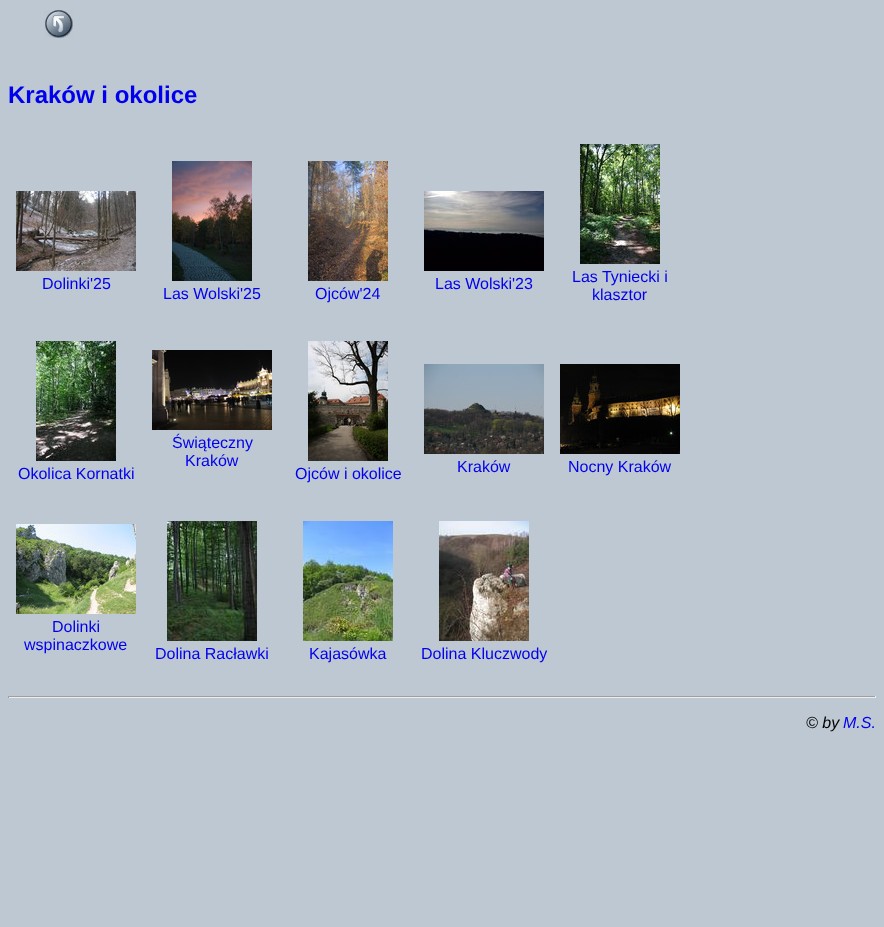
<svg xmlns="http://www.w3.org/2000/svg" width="884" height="927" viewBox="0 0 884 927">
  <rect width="100%" height="100%" fill="rgb(190,200,210)"/>
  <image x="44" y="10" width="29" height="28" href="pic1.png"/>
  <text x="8" y="103" font-family="Liberation Sans" font-size="24" font-weight="bold" fill="rgb(0,0,238)">Kraków i okolice</text>
  <image x="16" y="191" width="120" height="80" href="pic2.png"/>
  <text x="42" y="289" font-family="Liberation Sans" font-size="16" fill="rgb(0,0,238)">Dolinki'25</text>
  <image x="424" y="191" width="120" height="80" href="pic3.png"/>
  <text x="435" y="289" font-family="Liberation Sans" font-size="16" fill="rgb(0,0,238)">Las Wolski'23</text>
  <image x="580" y="144" width="80" height="120" href="pic4.png"/>
  <g font-family="Liberation Sans" font-size="16" fill="rgb(0,0,238)">
    <text x="572" y="282">Las Tyniecki i</text>
    <text x="592" y="300">klasztor</text>
  </g>
  <image x="172" y="161" width="80" height="120" href="pic5.png"/>
  <text x="163" y="299" font-family="Liberation Sans" font-size="16" fill="rgb(0,0,238)">Las Wolski'25</text>
  <image x="308" y="161" width="80" height="120" href="pic6.png"/>
  <text x="315" y="299" font-family="Liberation Sans" font-size="16" fill="rgb(0,0,238)">Ojców'24</text>
  <image x="36" y="341" width="80" height="120" href="pic7.png"/>
  <text x="18" y="479" font-family="Liberation Sans" font-size="16" fill="rgb(0,0,238)">Okolica Kornatki</text>
  <image x="152" y="350" width="120" height="80" href="pic8.png"/>
  <g font-family="Liberation Sans" font-size="16" fill="rgb(0,0,238)">
    <text x="172" y="448">Świąteczny</text>
    <text x="185" y="466">Kraków</text>
  </g>
  <image x="308" y="341" width="80" height="120" href="pic9.png"/>
  <text x="295" y="479" font-family="Liberation Sans" font-size="16" fill="rgb(0,0,238)">Ojców i okolice</text>
  <image x="424" y="364" width="120" height="90" href="pic10.png"/>
  <text x="457" y="472" font-family="Liberation Sans" font-size="16" fill="rgb(0,0,238)">Kraków</text>
  <image x="560" y="364" width="120" height="90" href="pic11.png"/>
  <text x="568" y="472" font-family="Liberation Sans" font-size="16" fill="rgb(0,0,238)">Nocny Kraków</text>
  <image x="16" y="524" width="120" height="90" href="pic12.png"/>
  <g font-family="Liberation Sans" font-size="16" fill="rgb(0,0,238)">
    <text x="52" y="632">Dolinki</text>
    <text x="24" y="650">wspinaczkowe</text>
  </g>
  <image x="167" y="521" width="90" height="120" href="pic13.png"/>
  <text x="155" y="659" font-family="Liberation Sans" font-size="16" fill="rgb(0,0,238)">Dolina Racławki</text>
  <image x="303" y="521" width="90" height="120" href="pic14.png"/>
  <text x="309" y="659" font-family="Liberation Sans" font-size="16" fill="rgb(0,0,238)">Kajasówka</text>
  <image x="439" y="521" width="90" height="120" href="pic15.png"/>
  <text x="421" y="659" font-family="Liberation Sans" font-size="16" fill="rgb(0,0,238)">Dolina Kluczwody</text>
  <rect x="8" y="696" width="868" height="1" fill="rgb(159,159,159)"/>
  <rect x="875" y="696" width="1" height="2" fill="rgb(238,238,238)"/>
  <rect x="8" y="697" width="868" height="1" fill="rgb(238,238,238)"/>
  <rect x="8" y="696" width="1" height="2" fill="rgb(159,159,159)"/>
  <text x="806" y="728" font-family="Liberation Sans" font-size="16" font-style="italic" fill="rgb(0,0,0)">© by</text>
  <text x="843" y="728" font-family="Liberation Sans" font-size="16" font-style="italic" fill="rgb(0,0,238)">M.S.</text>
</svg>
